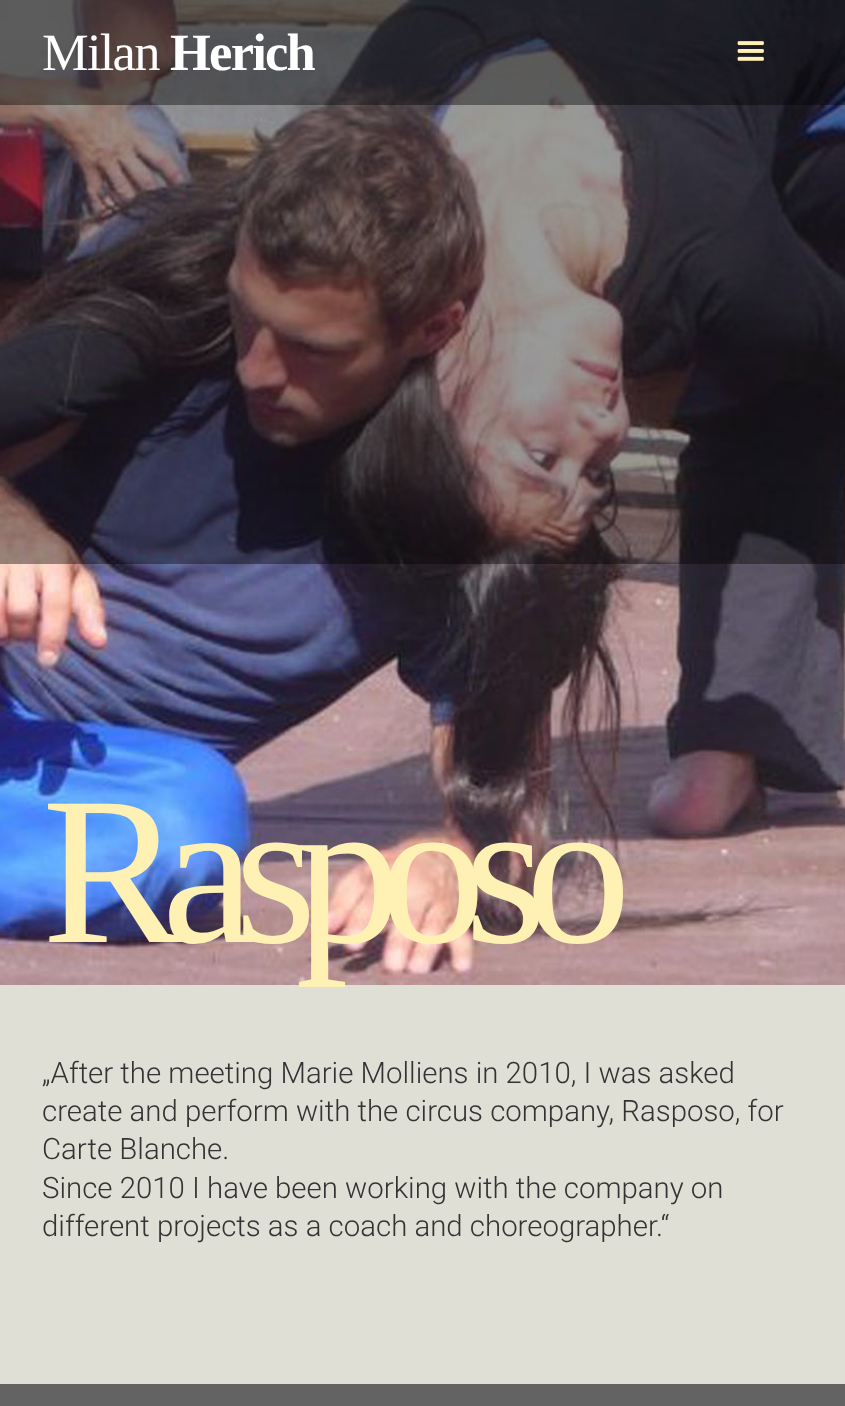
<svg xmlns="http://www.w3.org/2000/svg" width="845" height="1406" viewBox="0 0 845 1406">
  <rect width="100%" height="100%" fill="rgb(255,255,255)"/>
  <image x="0" y="0" width="845" height="985" href="pic2.png"/>
  <rect x="0" y="0" width="845" height="564" fill="rgba(0,0,0,0.4)"/>
  <rect x="0" y="0" width="845" height="105" fill="rgba(0,0,0,0.4)"/>
  <text x="42" y="70" font-family="Liberation Serif" font-size="52.5" letter-spacing="-1.75" fill="rgb(255,255,255)">Milan</text>
  <text x="170" y="70" font-family="Liberation Serif" font-size="52.5" font-weight="bold" letter-spacing="-1.75" fill="rgb(255,255,255)">Herich</text>
  <image x="737" y="41" width="27" height="20" href="pic1.png"/>
  <rect x="0" y="985" width="845" height="399" fill="rgb(223,223,214)"/>
  <text x="42" y="942" font-family="Liberation Serif" font-size="211" letter-spacing="-21" fill="rgb(255,241,179)">Rasposo</text>
  <g font-family="Roboto" font-size="29.4" font-weight="300" fill="rgb(51,51,51)">
    <text>
      <tspan x="42" y="1083">„After the meeting Marie Molliens in 2010, I was asked</tspan>
      <tspan x="42" y="1121">create and perform with the circus company, Rasposo, for</tspan>
      <tspan x="42" y="1159">Carte Blanche.</tspan>
      <tspan x="42" y="1198">Since 2010 I have been working with the company on</tspan>
      <tspan x="42" y="1236">different projects as a coach and choreographer.“</tspan>
    </text>
  </g>
  <rect x="0" y="1384" width="845" height="22" fill="rgb(99,99,99)"/>
</svg>
